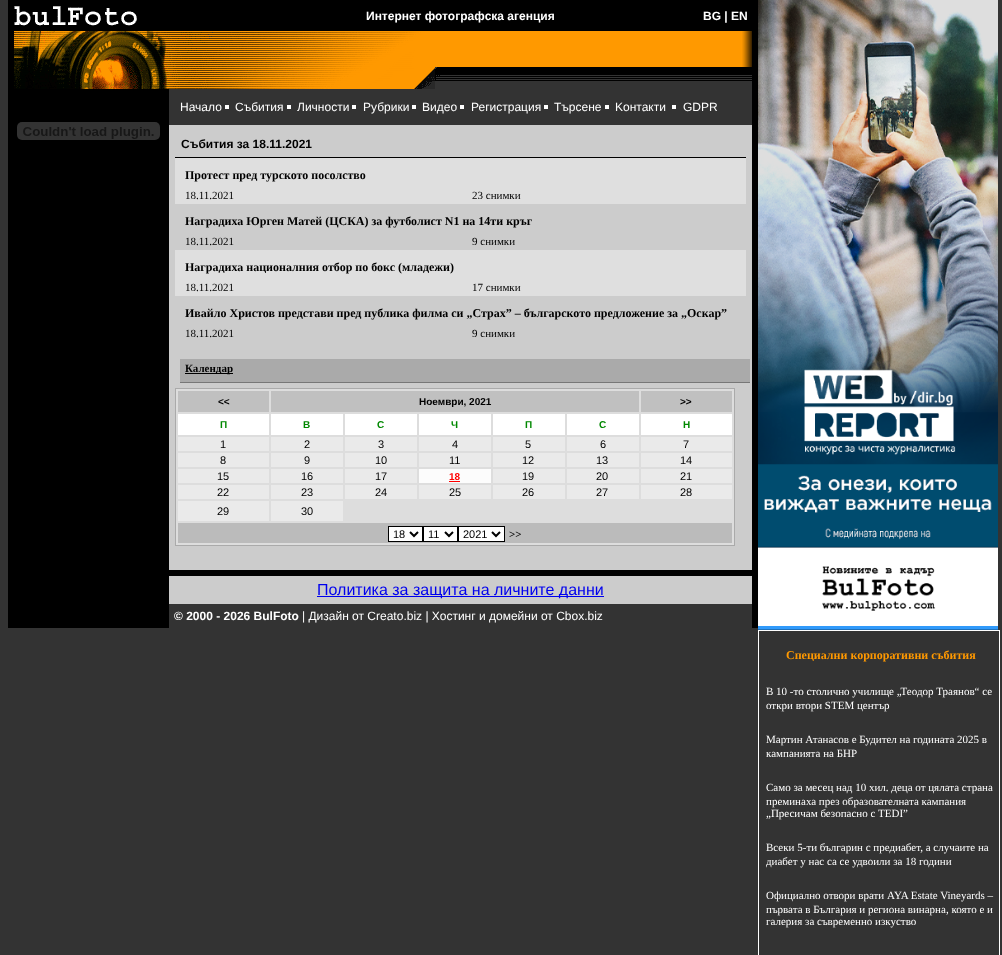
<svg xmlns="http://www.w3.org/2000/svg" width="1002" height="955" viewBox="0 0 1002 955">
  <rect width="100%" height="100%" fill="rgb(51,51,51)"/>
  <rect x="8" y="0" width="750" height="31" fill="rgb(0,0,0)"/>
  <image x="14" y="6" width="123" height="20" href="pic1.png"/>
  <g font-family="Liberation Sans" font-size="12" font-weight="bold" fill="rgb(255,255,255)">
    <text x="366" y="20">Интернет фотографска агенция</text>
    <text x="703" y="20">BG | EN</text>
  </g>
  <rect x="208" y="31" width="227" height="1" fill="rgb(255,153,0)"/>
  <rect x="8" y="31" width="6" height="58" fill="rgb(0,0,0)"/>
  <image x="14" y="31" width="194" height="58" href="pic2.png"/>
  <image x="208" y="32" width="227" height="57" href="pic3.png"/>
  <rect x="435" y="31" width="307" height="36" fill="rgb(255,153,0)"/>
  <image x="742" y="31" width="10" height="36" href="pic4.png"/>
  <image x="435" y="67" width="317" height="22" href="pic5.png"/>
  <rect x="752" y="31" width="6" height="597" fill="rgb(0,0,0)"/>
  <rect x="8" y="89" width="161" height="539" fill="rgb(0,0,0)"/>
  <image x="17" y="122" width="143" height="18" href="pic6.png"/>
  <text x="180" y="111" font-family="Liberation Sans" font-size="12" fill="rgb(255,255,255)">Начало</text>
  <rect x="225" y="105" width="4" height="4" fill="rgb(255,255,255)"/>
  <text x="235" y="111" font-family="Liberation Sans" font-size="12" fill="rgb(255,255,255)">Събития</text>
  <rect x="287" y="105" width="4" height="4" fill="rgb(255,255,255)"/>
  <text x="297" y="111" font-family="Liberation Sans" font-size="12" fill="rgb(255,255,255)">Личности</text>
  <rect x="352" y="105" width="4" height="4" fill="rgb(255,255,255)"/>
  <text x="363" y="111" font-family="Liberation Sans" font-size="12" fill="rgb(255,255,255)">Рубрики</text>
  <rect x="412" y="105" width="4" height="4" fill="rgb(255,255,255)"/>
  <text x="422" y="111" font-family="Liberation Sans" font-size="12" fill="rgb(255,255,255)">Видео</text>
  <rect x="460" y="105" width="4" height="4" fill="rgb(255,255,255)"/>
  <text x="471" y="111" font-family="Liberation Sans" font-size="12" fill="rgb(255,255,255)">Регистрация</text>
  <rect x="544" y="105" width="4" height="4" fill="rgb(255,255,255)"/>
  <text x="554" y="111" font-family="Liberation Sans" font-size="12" fill="rgb(255,255,255)">Търсене</text>
  <rect x="605" y="105" width="4" height="4" fill="rgb(255,255,255)"/>
  <text x="615" y="111" font-family="Liberation Sans" font-size="12" fill="rgb(255,255,255)">Kонтакти</text>
  <rect x="672" y="105" width="4" height="4" fill="rgb(255,255,255)"/>
  <text x="683" y="111" font-family="Liberation Sans" font-size="12" fill="rgb(255,255,255)">GDPR</text>
  <rect x="169" y="125" width="583" height="445" fill="rgb(204,204,204)"/>
  <rect x="175" y="157" width="571" height="1" fill="rgb(0,0,0)"/>
  <text x="181" y="148" font-family="Liberation Sans" font-size="12" font-weight="bold" fill="rgb(0,0,0)">Събития за 18.11.2021</text>
  <rect x="175" y="158" width="571" height="28" fill="rgb(223,223,223)"/>
  <text x="185" y="179" font-family="Liberation Serif" font-size="12" font-weight="bold" fill="rgb(0,0,0)">Протест пред турското посолство</text>
  <rect x="175" y="186" width="571" height="18" fill="rgb(223,223,223)"/>
  <g font-family="Liberation Serif" font-size="11" fill="rgb(0,0,0)">
    <text x="185" y="199">18.11.2021</text>
    <text x="472" y="199">23 снимки</text>
  </g>
  <text x="185" y="225" font-family="Liberation Serif" font-size="12" font-weight="bold" fill="rgb(0,0,0)">Наградиха Юрген Матей (ЦСКА) за футболист N1 на 14ти кръг</text>
  <g font-family="Liberation Serif" font-size="11" fill="rgb(0,0,0)">
    <text x="185" y="245">18.11.2021</text>
    <text x="472" y="245">9 снимки</text>
  </g>
  <rect x="175" y="250" width="571" height="28" fill="rgb(223,223,223)"/>
  <text x="185" y="271" font-family="Liberation Serif" font-size="12" font-weight="bold" fill="rgb(0,0,0)">Наградиха националния отбор по бокс (младежи)</text>
  <rect x="175" y="278" width="571" height="18" fill="rgb(223,223,223)"/>
  <g font-family="Liberation Serif" font-size="11" fill="rgb(0,0,0)">
    <text x="185" y="291">18.11.2021</text>
    <text x="472" y="291">17 снимки</text>
  </g>
  <text x="185" y="317" font-family="Liberation Serif" font-size="12" font-weight="bold" fill="rgb(0,0,0)">Ивайло Христов представи пред публика филма си „Страх” – българското предложение за „Оскар”</text>
  <g font-family="Liberation Serif" font-size="11" fill="rgb(0,0,0)">
    <text x="185" y="337">18.11.2021</text>
    <text x="472" y="337">9 снимки</text>
  </g>
  <rect x="180" y="359" width="570" height="23" fill="rgb(170,170,170)"/>
  <rect x="180" y="382" width="570" height="1" fill="rgb(119,119,119)"/>
  <rect x="185" y="373" width="48" height="1" fill="rgb(0,0,0)"/>
  <text x="185" y="372" font-family="Liberation Serif" font-size="11" font-weight="bold" fill="rgb(0,0,0)">Календар</text>
  <rect x="175.5" y="388.5" width="559" height="157" fill="rgb(221,221,221)" stroke="rgb(170,170,170)"/>
  <rect x="178" y="391" width="91" height="21" fill="rgb(192,192,192)"/>
  <text x="218" y="405" font-family="Liberation Sans" font-size="10" font-weight="bold" fill="rgb(0,0,0)">&lt;&lt;</text>
  <rect x="271" y="391" width="368" height="21" fill="rgb(192,192,192)"/>
  <text x="419" y="405" font-family="Liberation Sans" font-size="10" font-weight="bold" fill="rgb(0,0,0)">Ноември, 2021</text>
  <rect x="641" y="391" width="91" height="21" fill="rgb(192,192,192)"/>
  <text x="680" y="405" font-family="Liberation Sans" font-size="10" font-weight="bold" fill="rgb(0,0,0)">&gt;&gt;</text>
  <rect x="178" y="414" width="91" height="21" fill="rgb(255,255,255)"/>
  <text x="220" y="428" font-family="Liberation Sans" font-size="10" font-weight="bold" fill="rgb(0,136,0)">П</text>
  <rect x="271" y="414" width="72" height="21" fill="rgb(255,255,255)"/>
  <text x="303" y="428" font-family="Liberation Sans" font-size="10" font-weight="bold" fill="rgb(0,136,0)">В</text>
  <rect x="345" y="414" width="72" height="21" fill="rgb(255,255,255)"/>
  <text x="377" y="428" font-family="Liberation Sans" font-size="10" font-weight="bold" fill="rgb(0,136,0)">С</text>
  <rect x="419" y="414" width="72" height="21" fill="rgb(255,255,255)"/>
  <text x="451" y="428" font-family="Liberation Sans" font-size="10" font-weight="bold" fill="rgb(0,136,0)">Ч</text>
  <rect x="493" y="414" width="72" height="21" fill="rgb(255,255,255)"/>
  <text x="525" y="428" font-family="Liberation Sans" font-size="10" font-weight="bold" fill="rgb(0,136,0)">П</text>
  <rect x="567" y="414" width="72" height="21" fill="rgb(255,255,255)"/>
  <text x="599" y="428" font-family="Liberation Sans" font-size="10" font-weight="bold" fill="rgb(0,136,0)">С</text>
  <rect x="641" y="414" width="91" height="21" fill="rgb(255,255,255)"/>
  <text x="683" y="428" font-family="Liberation Sans" font-size="10" font-weight="bold" fill="rgb(0,136,0)">Н</text>
  <rect x="178" y="437" width="91" height="14" fill="rgb(234,234,234)"/>
  <text x="220" y="448" font-family="Liberation Sans" font-size="11" fill="rgb(0,0,0)">1</text>
  <rect x="271" y="437" width="72" height="14" fill="rgb(234,234,234)"/>
  <text x="304" y="448" font-family="Liberation Sans" font-size="11" fill="rgb(0,0,0)">2</text>
  <rect x="345" y="437" width="72" height="14" fill="rgb(234,234,234)"/>
  <text x="378" y="448" font-family="Liberation Sans" font-size="11" fill="rgb(0,0,0)">3</text>
  <rect x="419" y="437" width="72" height="14" fill="rgb(234,234,234)"/>
  <text x="452" y="448" font-family="Liberation Sans" font-size="11" fill="rgb(0,0,0)">4</text>
  <rect x="493" y="437" width="72" height="14" fill="rgb(234,234,234)"/>
  <text x="525" y="448" font-family="Liberation Sans" font-size="11" fill="rgb(0,0,0)">5</text>
  <rect x="567" y="437" width="72" height="14" fill="rgb(234,234,234)"/>
  <text x="600" y="448" font-family="Liberation Sans" font-size="11" fill="rgb(0,0,0)">6</text>
  <rect x="641" y="437" width="91" height="14" fill="rgb(234,234,234)"/>
  <text x="683" y="448" font-family="Liberation Sans" font-size="11" fill="rgb(0,0,0)">7</text>
  <rect x="178" y="453" width="91" height="14" fill="rgb(234,234,234)"/>
  <text x="220" y="464" font-family="Liberation Sans" font-size="11" fill="rgb(0,0,0)">8</text>
  <rect x="271" y="453" width="72" height="14" fill="rgb(234,234,234)"/>
  <text x="304" y="464" font-family="Liberation Sans" font-size="11" fill="rgb(0,0,0)">9</text>
  <rect x="345" y="453" width="72" height="14" fill="rgb(234,234,234)"/>
  <text x="375" y="464" font-family="Liberation Sans" font-size="11" fill="rgb(0,0,0)">10</text>
  <rect x="419" y="453" width="72" height="14" fill="rgb(234,234,234)"/>
  <text x="449" y="464" font-family="Liberation Sans" font-size="11" fill="rgb(0,0,0)">11</text>
  <rect x="493" y="453" width="72" height="14" fill="rgb(234,234,234)"/>
  <text x="522" y="464" font-family="Liberation Sans" font-size="11" fill="rgb(0,0,0)">12</text>
  <rect x="567" y="453" width="72" height="14" fill="rgb(234,234,234)"/>
  <text x="596" y="464" font-family="Liberation Sans" font-size="11" fill="rgb(0,0,0)">13</text>
  <rect x="641" y="453" width="91" height="14" fill="rgb(234,234,234)"/>
  <text x="680" y="464" font-family="Liberation Sans" font-size="11" fill="rgb(0,0,0)">14</text>
  <rect x="178" y="469" width="91" height="14" fill="rgb(234,234,234)"/>
  <text x="217" y="480" font-family="Liberation Sans" font-size="11" fill="rgb(0,0,0)">15</text>
  <rect x="271" y="469" width="72" height="14" fill="rgb(234,234,234)"/>
  <text x="301" y="480" font-family="Liberation Sans" font-size="11" fill="rgb(0,0,0)">16</text>
  <rect x="345" y="469" width="72" height="14" fill="rgb(234,234,234)"/>
  <text x="375" y="480" font-family="Liberation Sans" font-size="11" fill="rgb(0,0,0)">17</text>
  <rect x="419" y="469" width="72" height="14" fill="rgb(252,252,252)"/>
  <text x="449" y="480" font-family="Liberation Sans" font-size="10" font-weight="bold" fill="rgb(255,0,0)">18</text>
  <rect x="449" y="481" width="11" height="1" fill="rgb(255,0,0)"/>
  <rect x="493" y="469" width="72" height="14" fill="rgb(234,234,234)"/>
  <text x="522" y="480" font-family="Liberation Sans" font-size="11" fill="rgb(0,0,0)">19</text>
  <rect x="567" y="469" width="72" height="14" fill="rgb(234,234,234)"/>
  <text x="596" y="480" font-family="Liberation Sans" font-size="11" fill="rgb(0,0,0)">20</text>
  <rect x="641" y="469" width="91" height="14" fill="rgb(234,234,234)"/>
  <text x="680" y="480" font-family="Liberation Sans" font-size="11" fill="rgb(0,0,0)">21</text>
  <rect x="178" y="485" width="91" height="14" fill="rgb(234,234,234)"/>
  <text x="217" y="496" font-family="Liberation Sans" font-size="11" fill="rgb(0,0,0)">22</text>
  <rect x="271" y="485" width="72" height="14" fill="rgb(234,234,234)"/>
  <text x="301" y="496" font-family="Liberation Sans" font-size="11" fill="rgb(0,0,0)">23</text>
  <rect x="345" y="485" width="72" height="14" fill="rgb(234,234,234)"/>
  <text x="375" y="496" font-family="Liberation Sans" font-size="11" fill="rgb(0,0,0)">24</text>
  <rect x="419" y="485" width="72" height="14" fill="rgb(234,234,234)"/>
  <text x="449" y="496" font-family="Liberation Sans" font-size="11" fill="rgb(0,0,0)">25</text>
  <rect x="493" y="485" width="72" height="14" fill="rgb(234,234,234)"/>
  <text x="522" y="496" font-family="Liberation Sans" font-size="11" fill="rgb(0,0,0)">26</text>
  <rect x="567" y="485" width="72" height="14" fill="rgb(234,234,234)"/>
  <text x="596" y="496" font-family="Liberation Sans" font-size="11" fill="rgb(0,0,0)">27</text>
  <rect x="641" y="485" width="91" height="14" fill="rgb(234,234,234)"/>
  <text x="680" y="496" font-family="Liberation Sans" font-size="11" fill="rgb(0,0,0)">28</text>
  <rect x="178" y="501" width="91" height="20" fill="rgb(234,234,234)"/>
  <text x="217" y="515" font-family="Liberation Sans" font-size="11" fill="rgb(0,0,0)">29</text>
  <rect x="271" y="501" width="72" height="20" fill="rgb(234,234,234)"/>
  <text x="301" y="515" font-family="Liberation Sans" font-size="11" fill="rgb(0,0,0)">30</text>
  <rect x="178" y="523" width="554" height="20" fill="rgb(187,187,187)"/>
  <rect x="388.5" y="526.5" width="34" height="15" fill="rgb(255,255,255)" stroke="rgb(0,0,0)"/>
  <path d="M410 532L414 536L418 532" fill="none" stroke="rgb(0,0,0)" stroke-width="2"/>
  <text x="393" y="538" font-family="Liberation Sans" font-size="11" fill="rgb(0,0,0)">18</text>
  <rect x="423.5" y="526.5" width="34" height="15" fill="rgb(255,255,255)" stroke="rgb(0,0,0)"/>
  <path d="M445 532L449 536L453 532" fill="none" stroke="rgb(0,0,0)" stroke-width="2"/>
  <text x="428" y="538" font-family="Liberation Sans" font-size="11" fill="rgb(0,0,0)">11</text>
  <rect x="458.5" y="526.5" width="46" height="15" fill="rgb(255,255,255)" stroke="rgb(0,0,0)"/>
  <path d="M492 532L496 536L500 532" fill="none" stroke="rgb(0,0,0)" stroke-width="2"/>
  <text x="463" y="538" font-family="Liberation Sans" font-size="11" fill="rgb(0,0,0)">2021</text>
  <text x="509" y="538" font-family="Liberation Serif" font-size="11" font-weight="bold" fill="rgb(0,0,0)">&gt;&gt;</text>
  <rect x="169" y="570" width="583" height="6" fill="rgb(0,0,0)"/>
  <rect x="169" y="576" width="583" height="28" fill="rgb(204,204,204)"/>
  <rect x="317" y="596" width="287" height="1" fill="rgb(0,0,238)"/>
  <text x="317" y="595" font-family="Liberation Sans" font-size="16" fill="rgb(0,0,238)">Политика за защита на личните данни</text>
  <text x="174" y="620" font-family="Liberation Sans" font-size="12" font-weight="bold" fill="rgb(255,255,255)">© 2000 - 2026 BulFoto</text>
  <text x="302" y="620" font-family="Liberation Sans" font-size="12" fill="rgb(255,255,255)">| Дизайн от Creato.biz | Хостинг и домейни от Cbox.biz</text>
  <image x="758" y="0" width="240" height="630" href="pic7.png"/>
  <rect x="758.5" y="630.5" width="241" height="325" fill="none" stroke="rgb(255,255,255)"/>
  <text x="786" y="659" font-family="Liberation Serif" font-size="12" font-weight="bold" fill="rgb(255,153,0)">Специални корпоративни събития</text>
  <g font-family="Liberation Serif" font-size="11" fill="rgb(255,255,255)">
    <text>
      <tspan x="766" y="695">В 10 -то столично училище „Теодор Траянов“ се</tspan>
      <tspan x="766" y="709">откри втори STEM център</tspan>
    </text>
    <text>
      <tspan x="766" y="743">Мартин Атанасов е Будител на годината 2025 в</tspan>
      <tspan x="766" y="757">кампанията на БНР</tspan>
    </text>
    <text>
      <tspan x="766" y="791">Само за месец над 10 хил. деца от цялата страна</tspan>
      <tspan x="766" y="805">преминаха през образователната кампания</tspan>
      <tspan x="766" y="817">„Пресичам безопасно с TEDI”</tspan>
    </text>
    <text>
      <tspan x="766" y="851">Всеки 5-ти българин с предиабет, а случаите на</tspan>
      <tspan x="766" y="865">диабет у нас са се удвоили за 18 години</tspan>
    </text>
    <text>
      <tspan x="766" y="899">Официално отвори врати AYA Estate Vineyards –</tspan>
      <tspan x="766" y="913">първата в България и региона винарна, която е и</tspan>
      <tspan x="766" y="925">галерия за съвременно изкуство</tspan>
    </text>
  </g>
</svg>
